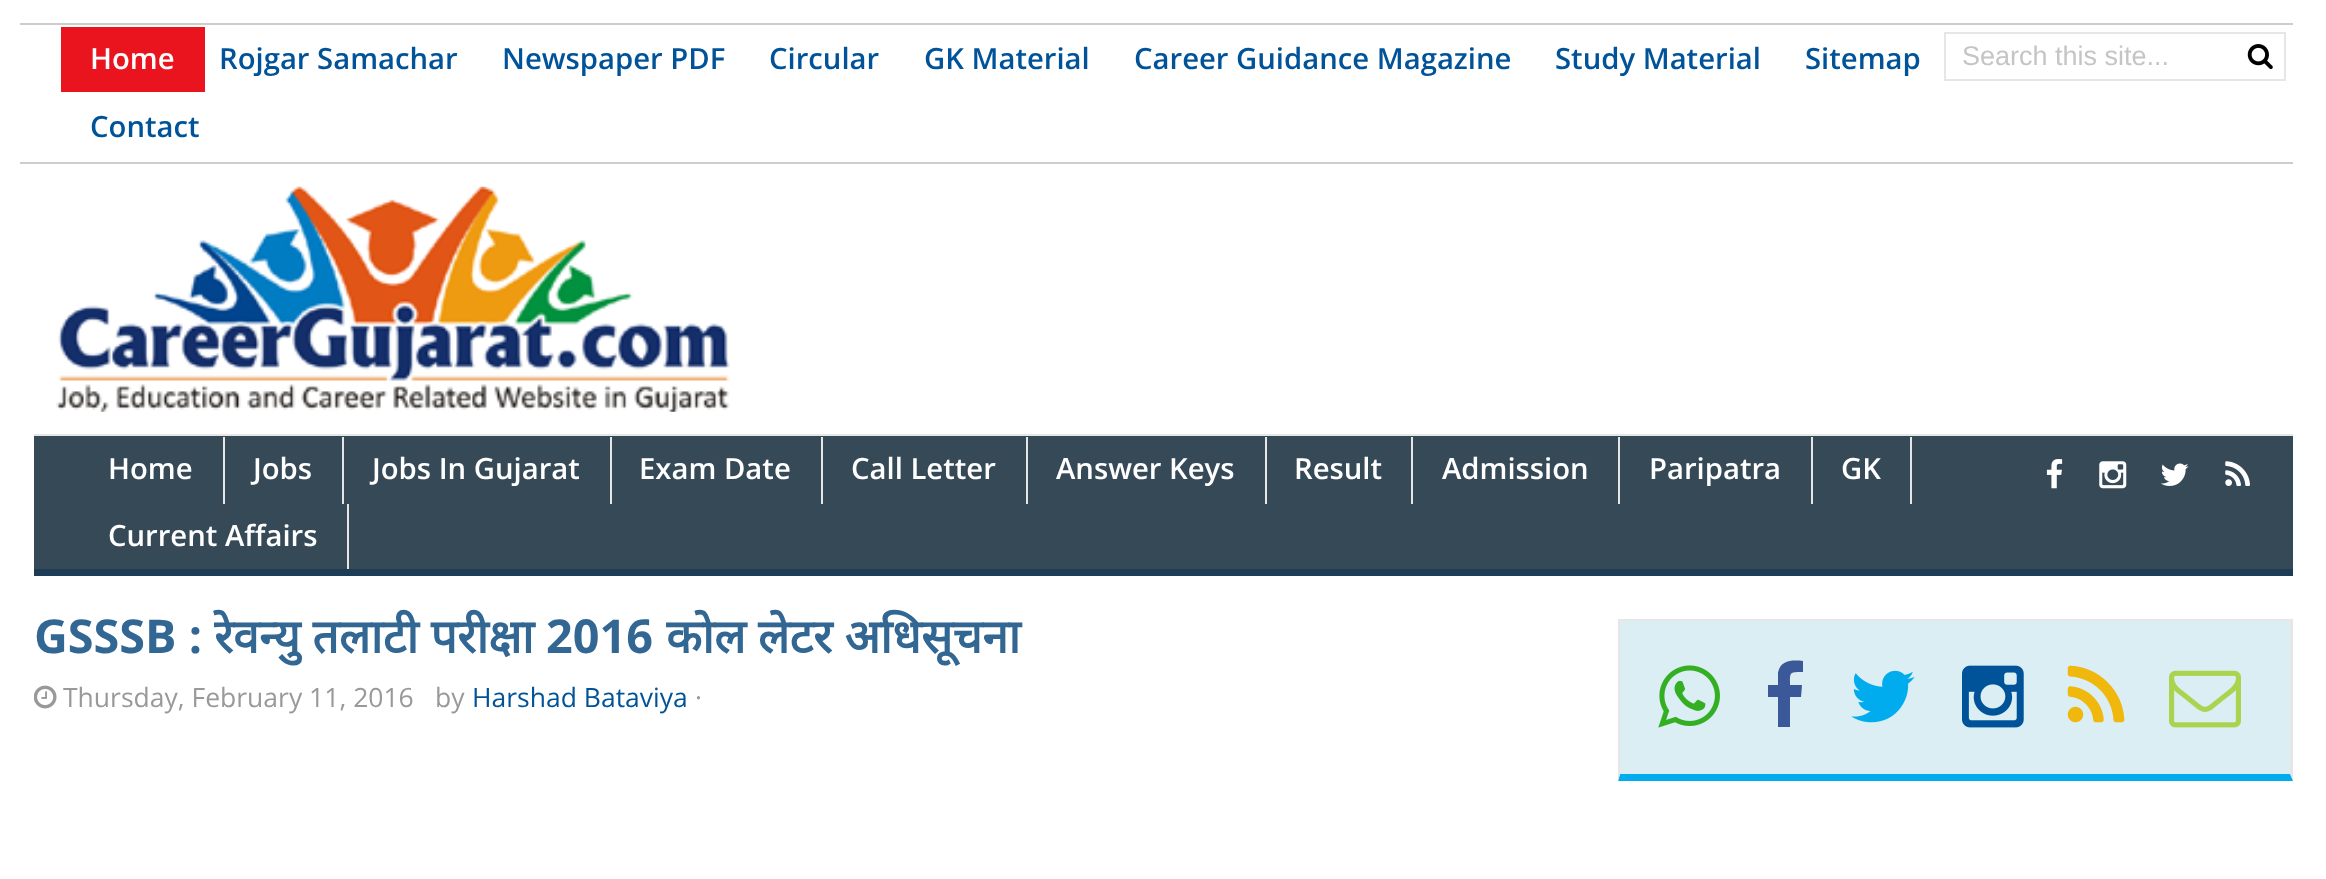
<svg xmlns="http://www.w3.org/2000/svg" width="2326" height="879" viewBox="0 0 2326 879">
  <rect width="100%" height="100%" fill="rgb(255,255,255)"/>
  <rect x="20" y="23" width="2273" height="2" fill="rgb(205,205,205)"/>
  <rect x="20" y="162" width="2273" height="2" fill="rgb(205,205,205)"/>
  <rect x="61" y="27" width="144" height="65" fill="rgb(234,20,31)"/>
  <text x="90" y="69" font-family="Open Sans" font-size="29.25" font-weight="600" fill="rgb(255,255,255)">Home</text>
  <g font-family="Open Sans" font-size="29.25" font-weight="600" fill="rgb(0,83,153)">
    <text x="219" y="69">Rojgar Samachar</text>
    <text x="502" y="69">Newspaper PDF</text>
    <text x="769" y="69">Circular</text>
    <text x="924" y="69">GK Material</text>
    <text x="1134" y="69">Career Guidance Magazine</text>
    <text x="1555" y="69">Study Material</text>
    <text x="1805" y="69">Sitemap</text>
    <text x="90" y="137">Contact</text>
  </g>
  <rect x="1945" y="33" width="340" height="47" fill="none" stroke="rgb(230,230,230)" stroke-width="2"/>
  <text x="1962" y="65" font-family="Liberation Sans" font-size="27" fill="rgb(197,197,197)">Search this site...</text>
  <image x="2247" y="44" width="26" height="26" href="pic1.png"/>
  <image x="56" y="186" width="674" height="226" href="pic2.png"/>
  <rect x="34" y="436" width="2259" height="133" fill="rgb(54,73,86)"/>
  <rect x="34" y="434" width="2259" height="2" fill="rgb(230,230,230)"/>
  <rect x="34" y="569" width="2259" height="7" fill="rgb(29,60,86)"/>
  <rect x="223" y="437" width="2" height="67" fill="rgb(230,230,230)"/>
  <text x="108" y="479" font-family="Open Sans" font-size="29.25" font-weight="600" fill="rgb(255,255,255)">Home</text>
  <rect x="342" y="437" width="2" height="67" fill="rgb(230,230,230)"/>
  <text x="253" y="479" font-family="Open Sans" font-size="29.25" font-weight="600" fill="rgb(255,255,255)">Jobs</text>
  <rect x="610" y="437" width="2" height="67" fill="rgb(230,230,230)"/>
  <text x="372" y="479" font-family="Open Sans" font-size="29.25" font-weight="600" fill="rgb(255,255,255)">Jobs In Gujarat</text>
  <rect x="821" y="437" width="2" height="67" fill="rgb(230,230,230)"/>
  <text x="639" y="479" font-family="Open Sans" font-size="29.25" font-weight="600" fill="rgb(255,255,255)">Exam Date</text>
  <rect x="1026" y="437" width="2" height="67" fill="rgb(230,230,230)"/>
  <text x="851" y="479" font-family="Open Sans" font-size="29.25" font-weight="600" fill="rgb(255,255,255)">Call Letter</text>
  <rect x="1265" y="437" width="2" height="67" fill="rgb(230,230,230)"/>
  <text x="1056" y="479" font-family="Open Sans" font-size="29.25" font-weight="600" fill="rgb(255,255,255)">Answer Keys</text>
  <rect x="1411" y="437" width="2" height="67" fill="rgb(230,230,230)"/>
  <text x="1294" y="479" font-family="Open Sans" font-size="29.25" font-weight="600" fill="rgb(255,255,255)">Result</text>
  <rect x="1618" y="437" width="2" height="67" fill="rgb(230,230,230)"/>
  <text x="1442" y="479" font-family="Open Sans" font-size="29.25" font-weight="600" fill="rgb(255,255,255)">Admission</text>
  <rect x="1811" y="437" width="2" height="67" fill="rgb(230,230,230)"/>
  <text x="1649" y="479" font-family="Open Sans" font-size="29.25" font-weight="600" fill="rgb(255,255,255)">Paripatra</text>
  <rect x="1910" y="437" width="2" height="67" fill="rgb(230,230,230)"/>
  <text x="1841" y="479" font-family="Open Sans" font-size="29.25" font-weight="600" fill="rgb(255,255,255)">GK</text>
  <rect x="347" y="504" width="2" height="65" fill="rgb(230,230,230)"/>
  <text x="108" y="546" font-family="Open Sans" font-size="29.25" font-weight="600" fill="rgb(255,255,255)">Current Affairs</text>
  <image x="2046" y="459" width="17" height="30" href="pic3.png"/>
  <image x="2099" y="461" width="28" height="28" href="pic4.png"/>
  <image x="2161" y="463" width="28" height="23" href="pic5.png"/>
  <image x="2225" y="461" width="25" height="25" href="pic6.png"/>
  <text x="34" y="653" font-family="Open Sans" font-size="46.75" font-weight="bold" fill="rgb(50,102,147)">GSSSB :</text>
  <text x="214" y="653" font-family="Noto Sans" font-size="46.75" font-weight="bold" fill="rgb(50,102,147)">रेवन्यु तलाटी परीक्षा</text>
  <text x="546" y="653" font-family="Open Sans" font-size="46.75" font-weight="bold" fill="rgb(50,102,147)">2016</text>
  <text x="666" y="653" font-family="Noto Sans" font-size="46.75" font-weight="bold" fill="rgb(50,102,147)">कोल लेटर अधिसूचना</text>
  <image x="34" y="685" width="23" height="24" href="pic7.png"/>
  <g font-family="Open Sans" font-size="26.5" fill="rgb(153,153,153)">
    <text x="63" y="707">Thursday, February 11, 2016</text>
    <text x="435" y="707">by</text>
  </g>
  <text x="472" y="707" font-family="Open Sans" font-size="26.5" fill="rgb(0,83,153)">Harshad Bataviya</text>
  <text x="695" y="707" font-family="'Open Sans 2'" font-size="26.5" fill="rgb(153,153,153)">·</text>
  <rect x="1620" y="621" width="670" height="153" fill="rgb(218,238,244)"/>
  <rect x="1618" y="619" width="675" height="2" fill="rgb(230,230,230)"/>
  <path d="M2293 619V781L2290 774V621Z" fill="rgb(230,230,230)"/>
  <path d="M2293 781H1618L1620 774H2290Z" fill="rgb(0,172,237)"/>
  <path d="M1618 781V619L1620 621V774Z" fill="rgb(230,230,230)"/>
  <image x="1658" y="665" width="62" height="63" href="pic8.png"/>
  <path d="M1803 661V672C1789 672 1790 672 1790 685H1802L1801 697H1790V727H1778V697H1768V685H1778V673C1780 660 1792 660 1803 661Z" fill="rgb(59,89,152)"/>
  <image x="1851" y="670" width="64" height="53" href="pic9.png"/>
  <image x="1962" y="665" width="62" height="63" href="pic10.png"/>
  <image x="2067" y="665" width="58" height="58" href="pic11.png"/>
  <image x="2169" y="670" width="72" height="58" href="pic12.png"/>
</svg>
